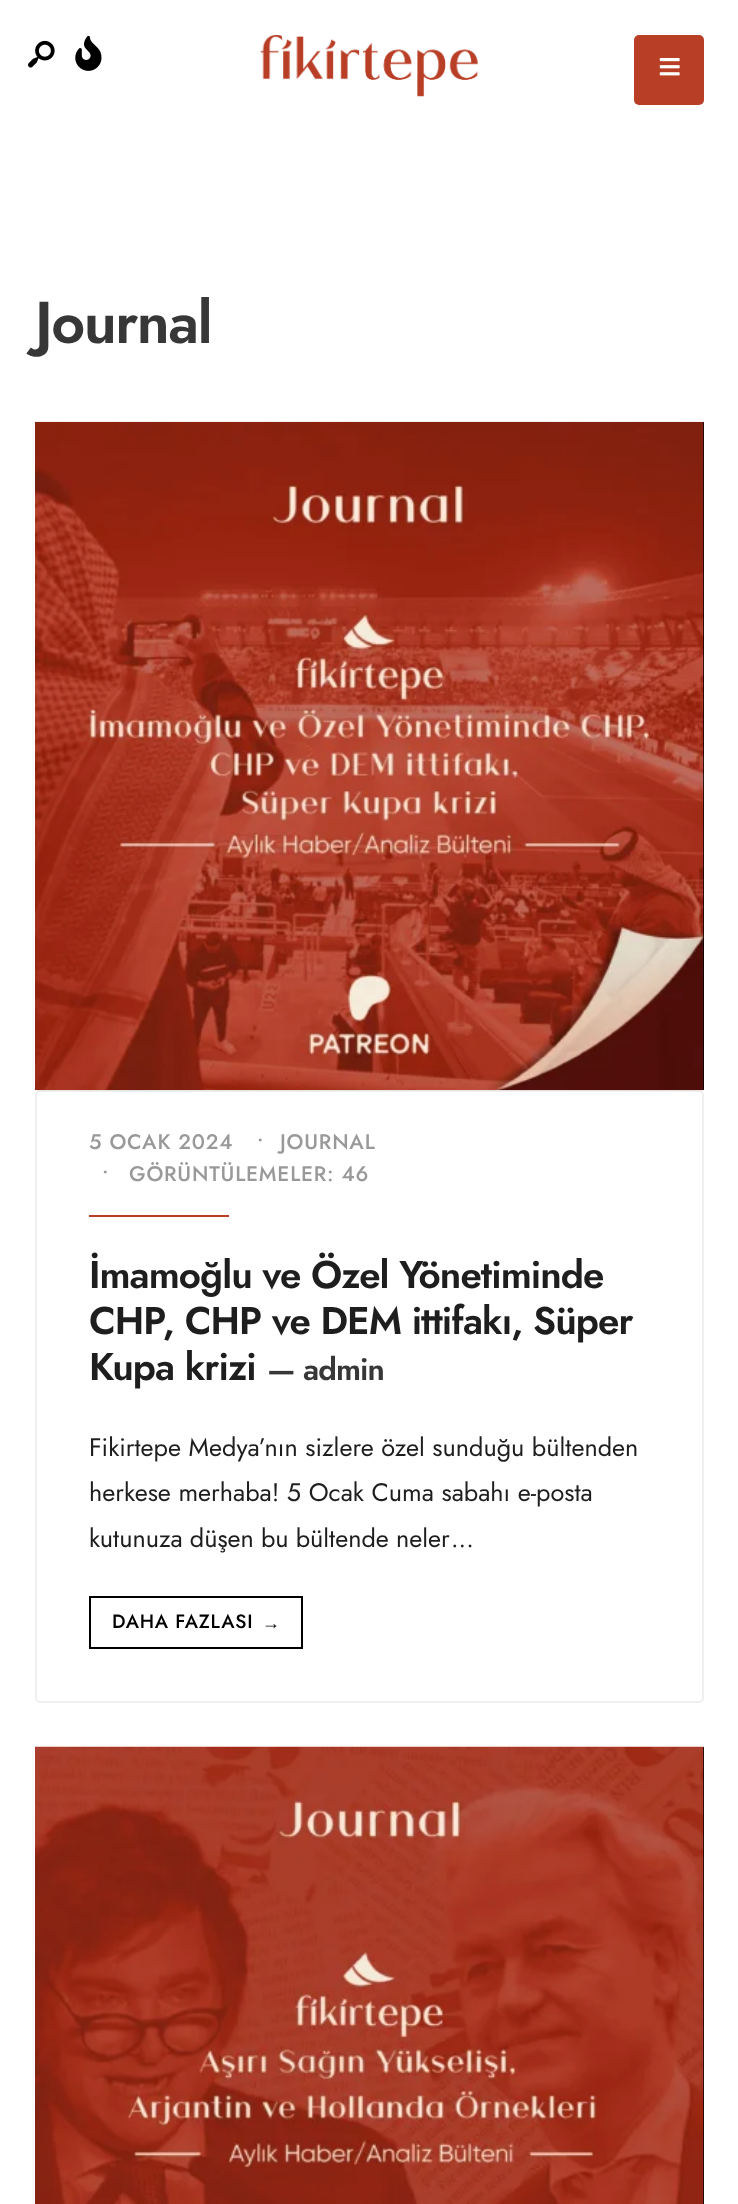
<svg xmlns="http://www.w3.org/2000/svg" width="738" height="2204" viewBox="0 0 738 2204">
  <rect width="100%" height="100%" fill="rgb(255,255,255)"/>
  <image x="28" y="40" width="27" height="28" href="pic1.png"/>
  <image x="75" y="35" width="27" height="36" href="pic2.png"/>
  <image x="260" y="35" width="218" height="62" href="pic3.png"/>
  <rect x="634" y="35" width="70" height="70" rx="5" fill="rgb(185,62,38)"/>
  <image x="659" y="58" width="21" height="18" href="pic4.png"/>
  <text x="35" y="343" font-family="Jost" font-size="59" font-weight="600" letter-spacing="-1.5" fill="rgb(55,55,55)">Journal</text>
  <rect x="703" y="422" width="1" height="668" fill="rgb(0,0,0)"/>
  <rect x="36" y="1091" width="667" height="611" rx="4" fill="none" stroke="rgb(239,239,239)" stroke-width="2"/>
  <image x="35" y="421" width="669" height="670" href="pic5.png"/>
  <g font-family="Jost" font-size="21" font-weight="500" letter-spacing="0.8" fill="rgb(153,153,153)">
    <text x="89" y="1149">5 OCAK 2024</text>
    <text x="257" y="1149">•</text>
    <text x="280" y="1149">JOURNAL</text>
    <text x="102" y="1181">•</text>
    <text x="129" y="1181">GÖRÜNTÜLEMELER: 46</text>
  </g>
  <rect x="89" y="1215" width="140" height="2" fill="rgb(185,62,38)"/>
  <g font-family="Jost" font-size="38.5" font-weight="600" letter-spacing="-0.95" fill="rgb(30,30,30)">
    <text>
      <tspan x="89" y="1288">İmamoğlu ve Özel Yönetiminde</tspan>
      <tspan x="89" y="1334">CHP, CHP ve DEM ittifakı, Süper</tspan>
      <tspan x="89" y="1380">Kupa krizi</tspan>
    </text>
  </g>
  <text x="267" y="1380" font-family="Jost" font-size="31" font-weight="600" letter-spacing="-0.95" fill="rgb(55,55,55)">— admin</text>
  <g font-family="Jost" font-size="25.25" fill="rgb(30,30,30)">
    <text>
      <tspan x="89" y="1456">Fikirtepe Medya’nın sizlere özel sunduğu bültenden</tspan>
      <tspan x="89" y="1501">herkese merhaba! 5 Ocak Cuma sabahı e-posta</tspan>
      <tspan x="89" y="1547" word-spacing="-0.5">kutunuza düşen bu bültende neler</tspan>
    </text>
    <text x="451" y="1547">...</text>
  </g>
  <rect x="90" y="1597" width="212" height="51" fill="none" stroke="rgb(0,0,0)" stroke-width="2"/>
  <text x="112" y="1628" font-family="Jost" font-size="19.25" font-weight="500" letter-spacing="0.75" fill="rgb(0,0,0)">DAHA FAZLASI</text>
  <text x="262" y="1629" font-family="Liberation Serif" font-size="18" letter-spacing="0.75" fill="rgb(0,0,0)">→</text>
  <rect x="703" y="1747" width="1" height="457" fill="rgb(0,0,0)"/>
  <image x="35" y="1746" width="669" height="458" href="pic6.png"/>
</svg>
